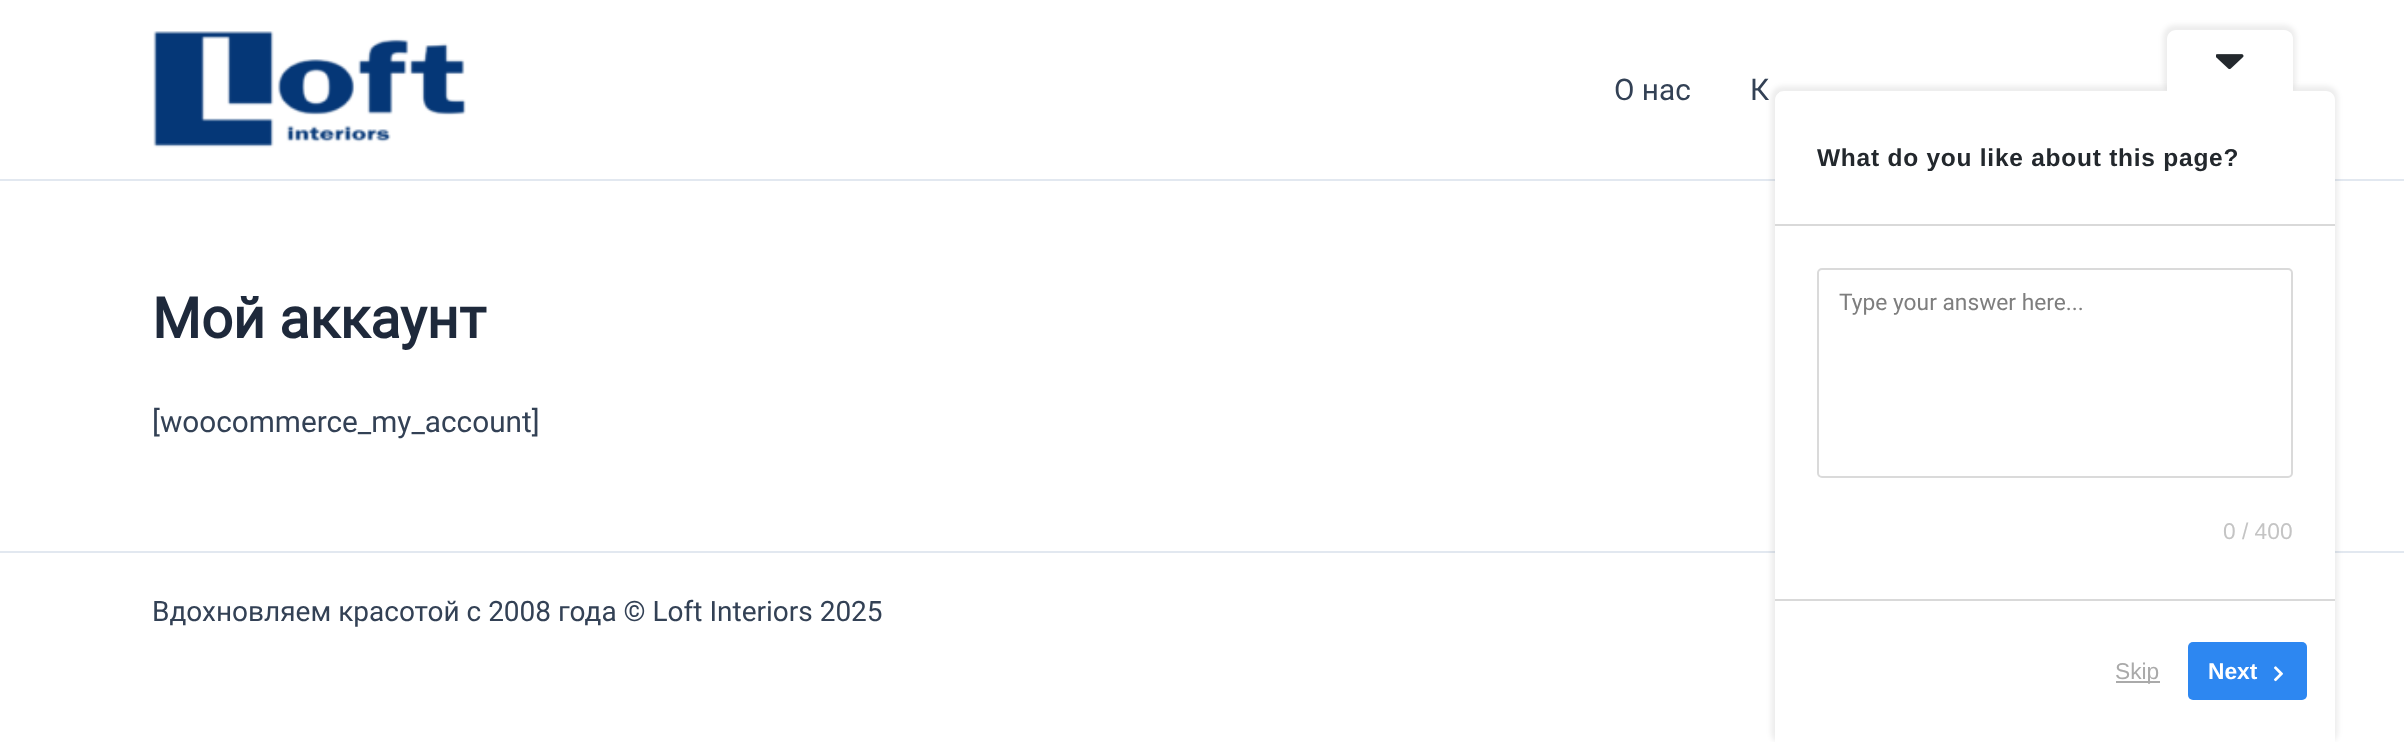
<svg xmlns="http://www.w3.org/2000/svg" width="2404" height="742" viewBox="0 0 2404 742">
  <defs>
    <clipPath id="clip1"><path d="M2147.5 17.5H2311.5L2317.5 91H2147.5Z"/></clipPath>
  </defs>
  <rect width="100%" height="100%" fill="rgb(255,255,255)"/>
  <rect x="0" y="179" width="2404" height="2" fill="rgb(226,232,240)"/>
  <image x="153" y="31" width="313" height="117" href="pic1.png"/>
  <g font-family="Roboto" font-size="29.75" fill="rgb(51,65,85)">
    <text x="1614" y="100">О нас</text>
    <text x="1750" y="100">К</text>
  </g>
  <text x="152" y="338" font-family="Roboto" font-size="56" font-weight="bold" fill="rgb(30,41,59)">Мой аккаунт</text>
  <text x="152" y="432" font-family="Roboto" font-size="29.75" fill="rgb(51,65,85)">[woocommerce_my_account]</text>
  <rect x="0" y="551" width="2404" height="2" fill="rgb(226,232,240)"/>
  <text x="152" y="621" font-family="Roboto" font-size="28" fill="rgb(51,65,85)">Вдохновляем красотой с 2008 года © Loft Interiors 2025</text>
  <rect x="1771" y="86" width="567" height="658" rx="12" fill="rgba(0,0,0,0.07)" filter="blur(2.5px)"/>
  <path d="M1784 91H2326C2331 91 2335 95 2335 100V742H1775V100C1775 95 1779 91 1784 91Z" fill="rgb(255,255,255)"/>
  <g clip-path="url(#clip1)">
    <rect x="2163" y="25" width="133" height="68" rx="12" fill="rgba(0,0,0,0.07)" filter="blur(2.5px)"/>
  </g>
  <path d="M2176 30H2284C2289 30 2293 34 2293 39V91H2167V39C2167 34 2171 30 2176 30Z" fill="rgb(255,255,255)"/>
  <image x="2216" y="54" width="28" height="16" href="pic2.png"/>
  <text x="1817" y="166" font-family="Liberation Sans" font-size="24.5" font-weight="bold" letter-spacing="0.75" fill="rgb(35,40,45)">What do you like about this page?</text>
  <rect x="1775" y="224" width="560" height="2" fill="rgb(217,217,217)"/>
  <rect x="1775" y="599" width="560" height="2" fill="rgb(217,217,217)"/>
  <rect x="1818" y="269" width="474" height="208" rx="4" fill="none" stroke="rgb(218,218,218)" stroke-width="2"/>
  <text x="1839" y="310" font-family="Roboto" font-size="22.75" fill="rgb(126,126,126)">Type your answer here...</text>
  <text x="2223" y="539" font-family="Liberation Sans" font-size="22.75" fill="rgb(196,196,196)">0 / 400</text>
  <rect x="2116" y="681" width="44" height="2" fill="rgb(170,170,170)"/>
  <text x="2115" y="679" font-family="Liberation Sans" font-size="22.75" fill="rgb(170,170,170)">Skip</text>
  <rect x="2188" y="642" width="119" height="58" rx="5" fill="rgb(45,135,241)"/>
  <text x="2208" y="679" font-family="Liberation Sans" font-size="22.75" font-weight="bold" fill="rgb(255,255,255)">Next</text>
  <image x="2274" y="666" width="9" height="16" href="pic3.png"/>
</svg>
